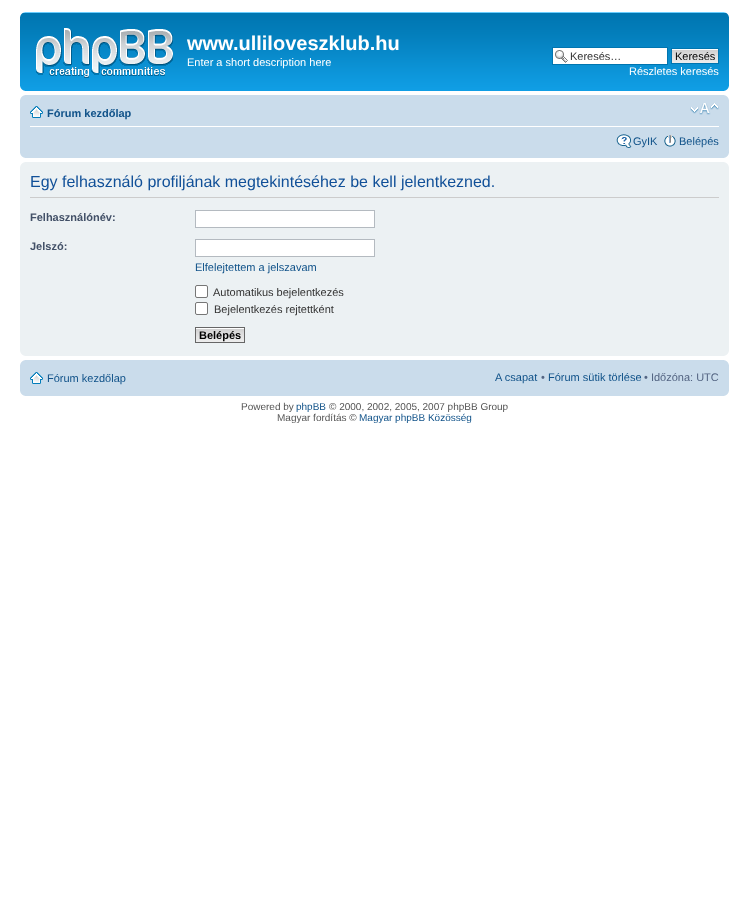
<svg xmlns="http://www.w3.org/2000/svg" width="749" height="906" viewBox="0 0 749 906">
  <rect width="100%" height="100%" fill="rgb(255,255,255)"/>
  <image x="20" y="12" width="709" height="79" href="pic1.png"/>
  <image x="20" y="12" width="5" height="5" href="pic2.png"/>
  <image x="724" y="12" width="5" height="5" href="pic3.png"/>
  <image x="36" y="28" width="137" height="50" href="pic4.png"/>
  <text x="187" y="50" font-family="Liberation Sans" font-size="20" font-weight="bold" fill="rgb(255,255,255)">www.ulliloveszklub.hu</text>
  <text x="187" y="66" font-family="Liberation Sans" font-size="11" fill="rgb(255,255,255)">Enter a short description here</text>
  <rect x="553" y="48" width="114" height="16" fill="rgb(255,255,255)"/>
  <image x="555" y="50" width="13" height="13" href="pic5.png"/>
  <rect x="552.5" y="47.5" width="115" height="17" fill="none" stroke="rgb(0,117,176)"/>
  <text x="570" y="60" font-family="Liberation Sans" font-size="11" fill="rgb(51,51,51)">Keresés…</text>
  <image x="672" y="49" width="46" height="14" href="pic6.png"/>
  <rect x="671.5" y="48.5" width="47" height="15" fill="none" stroke="rgb(0,117,176)"/>
  <text x="675" y="60" font-family="Liberation Sans" font-size="11" fill="rgb(0,0,0)">Keresés</text>
  <text x="629" y="75" font-family="Liberation Sans" font-size="11" fill="rgb(255,255,255)">Részletes keresés</text>
  <image x="20" y="86" width="5" height="5" href="pic7.png"/>
  <image x="724" y="86" width="5" height="5" href="pic8.png"/>
  <rect x="20" y="95" width="709" height="63" fill="rgb(202,220,235)"/>
  <image x="20" y="95" width="5" height="5" href="pic9.png"/>
  <image x="724" y="95" width="5" height="5" href="pic10.png"/>
  <rect x="30" y="126" width="689" height="1" fill="rgb(255,255,255)"/>
  <image x="30" y="106" width="13" height="12" href="pic11.png"/>
  <text x="47" y="117" font-family="Liberation Sans" font-size="11" font-weight="bold" fill="rgb(16,82,137)">Fórum kezdőlap</text>
  <image x="690" y="103" width="29" height="12" href="pic12.png"/>
  <image x="616" y="134" width="16" height="14" href="pic13.png"/>
  <text x="633" y="145" font-family="Liberation Sans" font-size="11" fill="rgb(16,82,137)">GyIK</text>
  <image x="664" y="135" width="12" height="12" href="pic14.png"/>
  <text x="679" y="145" font-family="Liberation Sans" font-size="11" fill="rgb(16,82,137)">Belépés</text>
  <image x="20" y="153" width="5" height="5" href="pic15.png"/>
  <image x="724" y="153" width="5" height="5" href="pic16.png"/>
  <rect x="20" y="162" width="709" height="194" fill="rgb(236,241,243)"/>
  <image x="20" y="162" width="5" height="5" href="pic17.png"/>
  <image x="724" y="162" width="5" height="5" href="pic18.png"/>
  <rect x="30" y="197" width="689" height="1" fill="rgb(204,204,204)"/>
  <text x="30" y="187" font-family="Liberation Sans" font-size="16" fill="rgb(17,80,152)">Egy felhasználó profiljának megtekintéséhez be kell jelentkezned.</text>
  <text x="30" y="221" font-family="Liberation Sans" font-size="11" font-weight="bold" fill="rgb(66,80,103)">Felhasználónév:</text>
  <rect x="195.5" y="210.5" width="179" height="17" fill="rgb(255,255,255)" stroke="rgb(180,186,192)"/>
  <text x="30" y="250" font-family="Liberation Sans" font-size="11" font-weight="bold" fill="rgb(66,80,103)">Jelszó:</text>
  <rect x="195.5" y="239.5" width="179" height="17" fill="rgb(255,255,255)" stroke="rgb(180,186,192)"/>
  <text x="195" y="271" font-family="Liberation Sans" font-size="11" fill="rgb(16,82,137)">Elfelejtettem a jelszavam</text>
  <rect x="195.5" y="285.5" width="12" height="12" rx="1.5" fill="rgb(255,255,255)" stroke="rgb(118,118,118)"/>
  <text x="213" y="296" font-family="Liberation Sans" font-size="11" fill="rgb(51,51,51)">Automatikus bejelentkezés</text>
  <rect x="195.5" y="302.5" width="12" height="12" rx="1.5" fill="rgb(255,255,255)" stroke="rgb(118,118,118)"/>
  <text x="214" y="313" font-family="Liberation Sans" font-size="11" fill="rgb(51,51,51)">Bejelentkezés rejtettként</text>
  <image x="196" y="328" width="48" height="14" href="pic19.png"/>
  <rect x="195.5" y="327.5" width="49" height="15" fill="none" stroke="rgb(102,102,102)"/>
  <text x="199" y="339" font-family="Liberation Sans" font-size="11" font-weight="bold" fill="rgb(0,0,0)">Belépés</text>
  <image x="20" y="351" width="5" height="5" href="pic20.png"/>
  <image x="724" y="351" width="5" height="5" href="pic21.png"/>
  <rect x="20" y="360" width="709" height="36" fill="rgb(202,220,235)"/>
  <image x="20" y="360" width="5" height="5" href="pic9.png"/>
  <image x="724" y="360" width="5" height="5" href="pic10.png"/>
  <image x="30" y="372" width="13" height="12" href="pic11.png"/>
  <g font-family="Liberation Sans" font-size="11" fill="rgb(16,82,137)">
    <text x="47" y="382">Fórum kezdőlap</text>
    <text x="495" y="381">A csapat</text>
  </g>
  <text x="541" y="381" font-family="Liberation Sans" font-size="11" fill="rgb(83,100,130)">•</text>
  <text x="548" y="381" font-family="Liberation Sans" font-size="11" fill="rgb(16,82,137)">Fórum sütik törlése</text>
  <text x="644" y="381" font-family="Liberation Sans" font-size="11" fill="rgb(83,100,130)">• Időzóna: UTC</text>
  <image x="20" y="391" width="5" height="5" href="pic15.png"/>
  <image x="724" y="391" width="5" height="5" href="pic16.png"/>
  <text x="241" y="410" font-family="Liberation Sans" font-size="10" fill="rgb(85,85,85)">Powered by</text>
  <text x="296" y="410" font-family="Liberation Sans" font-size="10" fill="rgb(16,82,137)">phpBB</text>
  <g font-family="Liberation Sans" font-size="10" fill="rgb(85,85,85)">
    <text x="329" y="410">© 2000, 2002, 2005, 2007 phpBB Group</text>
    <text x="277" y="421">Magyar fordítás ©</text>
  </g>
  <text x="359" y="421" font-family="Liberation Sans" font-size="10" fill="rgb(16,82,137)">Magyar phpBB Közösség</text>
</svg>
